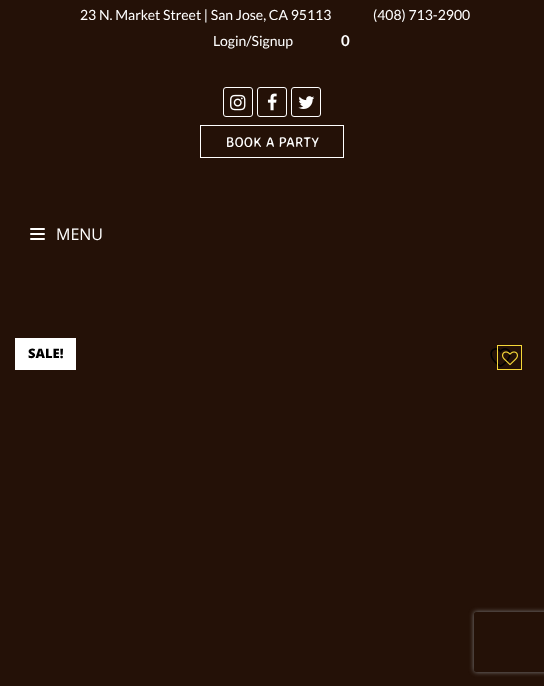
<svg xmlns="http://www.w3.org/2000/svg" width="544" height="686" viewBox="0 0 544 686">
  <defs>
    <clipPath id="clip1"><path d="M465 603H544V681H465ZM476 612H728C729 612 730 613 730 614V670C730 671 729 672 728 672H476C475 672 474 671 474 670V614C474 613 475 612 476 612Z" clip-rule="evenodd"/></clipPath>
  </defs>
  <rect width="100%" height="100%" fill="rgb(36,17,7)"/>
  <g font-family="Lato" font-size="14" fill="rgb(255,255,255)">
    <text x="80" y="20">23 N. Market Street | San Jose, CA 95113</text>
    <text x="373" y="20">(408) 713-2900</text>
    <text x="213" y="46">Login/Signup</text>
  </g>
  <text x="341" y="46" font-family="Lato" font-size="15" font-weight="bold" fill="rgb(255,255,255)">0</text>
  <rect x="223.5" y="87.5" width="29" height="29" rx="2.5" fill="none" stroke="rgb(255,255,255)"/>
  <image x="230" y="94" width="16" height="17" href="pic1.png"/>
  <rect x="257.5" y="87.5" width="29" height="29" rx="2.5" fill="none" stroke="rgb(255,255,255)"/>
  <image x="267" y="93" width="10" height="18" href="pic2.png"/>
  <rect x="291.5" y="87.5" width="29" height="29" rx="2.5" fill="none" stroke="rgb(255,255,255)"/>
  <image x="298" y="96" width="17" height="13" href="pic3.png"/>
  <rect x="200.5" y="125.5" width="143" height="32" fill="none" stroke="rgb(255,255,255)"/>
  <text x="226" y="147" font-family="Averia Sans Libre" font-size="14" fill="rgb(255,255,255)">BOOK A PARTY</text>
  <rect x="30" y="228" width="15" height="2" rx="1" fill="rgb(255,255,255)"/>
  <rect x="30" y="233" width="15" height="2" rx="1" fill="rgb(255,255,255)"/>
  <rect x="30" y="238" width="15" height="2" rx="1" fill="rgb(255,255,255)"/>
  <text x="56" y="240" font-family="Open Sans" font-size="16" fill="rgb(255,255,255)">MENU</text>
  <rect x="15" y="338" width="61" height="32" fill="rgb(255,255,255)"/>
  <text x="28" y="358" font-family="Open Sans" font-size="13" font-weight="800" fill="rgb(0,0,0)">SALE!</text>
  <image x="490" y="348" width="21" height="19" href="pic5.png"/>
  <rect x="497.5" y="345.5" width="24" height="24" fill="none" stroke="rgb(246,216,56)"/>
  <image x="502" y="351" width="16" height="15" href="pic4.png"/>
  <g clip-path="url(#clip1)">
    <rect x="474" y="612" width="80" height="60" rx="2" fill="rgb(128,128,128)" filter="blur(2.5px)"/>
  </g>
</svg>
